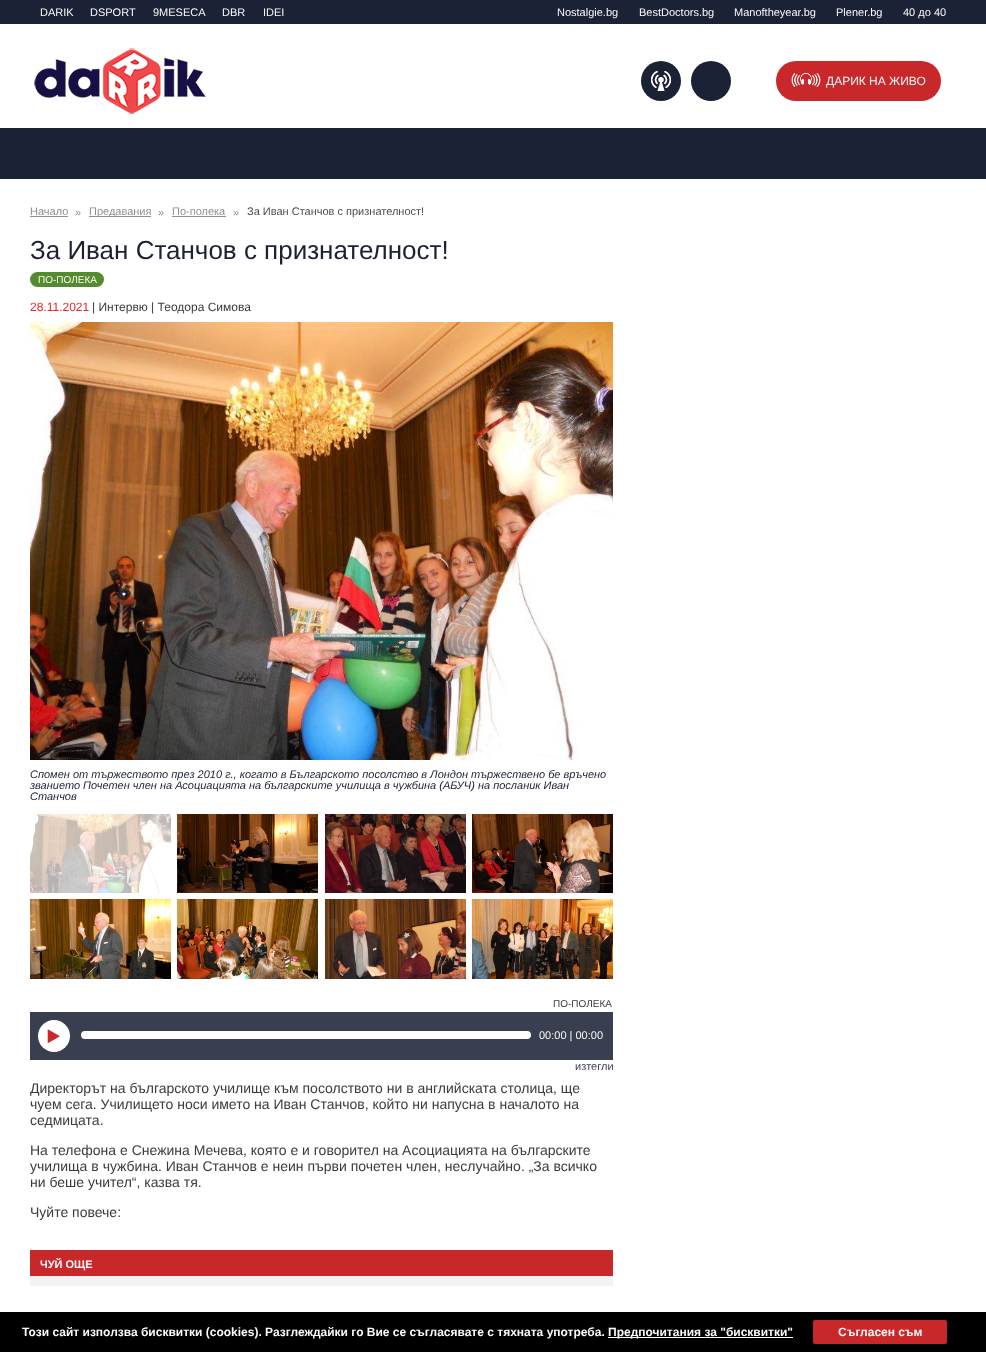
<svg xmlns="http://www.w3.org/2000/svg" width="986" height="1352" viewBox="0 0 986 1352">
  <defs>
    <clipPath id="clip1"><rect x="30" y="205" width="583" height="12"/></clipPath>
  </defs>
  <rect width="100%" height="100%" fill="rgb(255,255,255)"/>
  <rect x="0" y="0" width="986" height="24" fill="rgb(28,34,53)"/>
  <g font-family="Liberation Sans" font-size="11" fill="rgb(250,250,250)">
    <text x="40" y="16">DARIK</text>
    <text x="90" y="16">DSPORT</text>
    <text x="153" y="16">9MESECA</text>
    <text x="222" y="16">DBR</text>
    <text x="263" y="16">IDEI</text>
    <text x="557" y="16">Nostalgie.bg</text>
    <text x="639" y="16">BestDoctors.bg</text>
    <text x="734" y="16">Manоftheyear.bg</text>
    <text x="836" y="16">Plener.bg</text>
    <text x="903" y="16">40 до 40</text>
  </g>
  <image x="34" y="48" width="173" height="66" href="pic1.png"/>
  <circle cx="661" cy="81" r="20" fill="rgb(28,34,53)"/>
  <image x="651" y="71" width="20" height="20" href="pic2.png"/>
  <circle cx="711" cy="81" r="20" fill="rgb(28,34,53)"/>
  <rect x="776" y="61" width="165" height="40" rx="20" fill="rgb(201,40,43)"/>
  <image x="791" y="72" width="30" height="15" href="pic3.png"/>
  <text x="826" y="85" font-family="Liberation Sans" font-size="12" fill="rgb(250,250,250)">ДАРИК НА ЖИВО</text>
  <rect x="0" y="128" width="986" height="51" fill="rgb(28,34,53)"/>
  <text x="30" y="215" font-family="Liberation Sans" font-size="11" fill="rgb(143,143,143)">Начало</text>
  <rect x="30" y="216" width="38" height="1" fill="rgb(143,143,143)"/>
  <text x="75" y="216" font-family="Liberation Sans" font-size="11" fill="rgb(143,143,143)">»</text>
  <rect x="89" y="216" width="62" height="1" fill="rgb(143,143,143)"/>
  <g clip-path="url(#clip1)">
    <text x="89" y="215" font-family="Liberation Sans" font-size="11" fill="rgb(143,143,143)">Предавания</text>
  </g>
  <g font-family="Liberation Sans" font-size="11" fill="rgb(143,143,143)">
    <text x="158" y="216">»</text>
    <text x="172" y="215">По-полека</text>
  </g>
  <rect x="172" y="216" width="54" height="1" fill="rgb(143,143,143)"/>
  <text x="233" y="216" font-family="Liberation Sans" font-size="11" fill="rgb(143,143,143)">»</text>
  <text x="247" y="215" font-family="Liberation Sans" font-size="11" fill="rgb(76,76,76)">За Иван Станчов с признателност!</text>
  <text x="30" y="259" font-family="Liberation Sans" font-size="26" fill="rgb(28,34,53)">За Иван Станчов с признателност!</text>
  <rect x="30" y="272" width="74" height="15" rx="7.5" fill="rgb(85,139,47)"/>
  <text x="38" y="283" font-family="Liberation Sans" font-size="10" fill="rgb(250,250,250)">ПО-ПОЛЕКА</text>
  <text x="30" y="311" font-family="Liberation Sans" font-size="12" fill="rgb(238,35,38)">28.11.2021</text>
  <text x="92" y="311" font-family="Liberation Sans" font-size="12" fill="rgb(59,59,59)">| Интервю | Теодора Симова</text>
  <image x="30" y="322" width="583" height="438" href="pic4.png"/>
  <g font-family="Liberation Sans" font-size="11" font-style="italic" fill="rgb(28,34,53)">
    <text>
      <tspan x="30" y="778">Спомен от тържеството през 2010 г., когато в Българското посолство в Лондон тържествено бе връчено</tspan>
      <tspan x="30" y="789">званието Почетен член на Асоциацията на българските училища в чужбина (АБУЧ) на посланик Иван</tspan>
      <tspan x="30" y="800">Станчов</tspan>
    </text>
  </g>
  <image x="30" y="814" width="141" height="79" href="pic5.png"/>
  <image x="177" y="814" width="141" height="79" href="pic6.png"/>
  <image x="325" y="814" width="141" height="79" href="pic7.png"/>
  <image x="472" y="814" width="141" height="79" href="pic8.png"/>
  <image x="30" y="899" width="141" height="80" href="pic9.png"/>
  <image x="177" y="899" width="141" height="80" href="pic10.png"/>
  <image x="325" y="899" width="141" height="80" href="pic11.png"/>
  <image x="472" y="899" width="141" height="80" href="pic12.png"/>
  <text x="553" y="1007" font-family="Liberation Sans" font-size="10" fill="rgb(59,59,59)">ПО-ПОЛЕКА</text>
  <rect x="30" y="1012" width="583" height="48" fill="rgb(58,63,79)"/>
  <circle cx="54" cy="1036" r="16" fill="rgb(255,255,255)"/>
  <image x="47" y="1029" width="13" height="15" href="pic13.png"/>
  <rect x="82" y="1032" width="448" height="6" rx="3" fill="rgb(255,255,255)" stroke="rgb(255,255,255)" stroke-width="2"/>
  <text x="539" y="1039" font-family="Liberation Sans" font-size="11" fill="rgb(250,250,250)">00:00 | 00:00</text>
  <text x="575" y="1070" font-family="Liberation Sans" font-size="11" fill="rgb(58,63,79)">изтегли</text>
  <g font-family="Liberation Sans" font-size="14" fill="rgb(59,59,59)">
    <text>
      <tspan x="30" y="1093">Директорът на българското училище към посолството ни в английската столица, ще</tspan>
      <tspan x="30" y="1109">чуем сега. Училището носи името на Иван Станчов, който ни напусна в началото на</tspan>
      <tspan x="30" y="1125">седмицата.</tspan>
    </text>
    <text>
      <tspan x="30" y="1155">На телефона е Снежина Мечева, която е и говорител на Асоциацията на българските</tspan>
      <tspan x="30" y="1171">училища в чужбина. Иван Станчов е неин първи почетен член, неслучайно. „За всичко</tspan>
      <tspan x="30" y="1187">ни беше учител“, казва тя.</tspan>
    </text>
    <text x="30" y="1217">Чуйте повече:</text>
  </g>
  <rect x="30" y="1276" width="583" height="10" fill="rgb(243,243,243)"/>
  <rect x="30" y="1250" width="583" height="26" fill="rgb(201,40,43)"/>
  <text x="40" y="1268" font-family="Liberation Sans" font-size="11" font-weight="bold" fill="rgb(250,250,250)">ЧУЙ ОЩЕ</text>
  <rect x="0" y="1312" width="986" height="40" fill="rgb(0,0,0)"/>
  <text x="22" y="1336" font-family="Liberation Sans" font-size="12" font-weight="bold" fill="rgb(250,250,250)">Този сайт използва бисквитки (cookies). Разглеждайки го Вие се съгласявате с тяхната употреба.</text>
  <rect x="608" y="1337" width="185" height="1" fill="rgb(255,255,255)"/>
  <text x="608" y="1336" font-family="Liberation Sans" font-size="12" font-weight="bold" fill="rgb(250,250,250)">Предпочитания за "бисквитки"</text>
  <rect x="812" y="1319" width="136" height="26" rx="3" fill="rgb(201,40,43)" stroke="rgb(0,0,0)" stroke-width="2"/>
  <text x="838" y="1336" font-family="Liberation Sans" font-size="12" font-weight="bold" fill="rgb(250,250,250)">Съгласен съм</text>
</svg>
